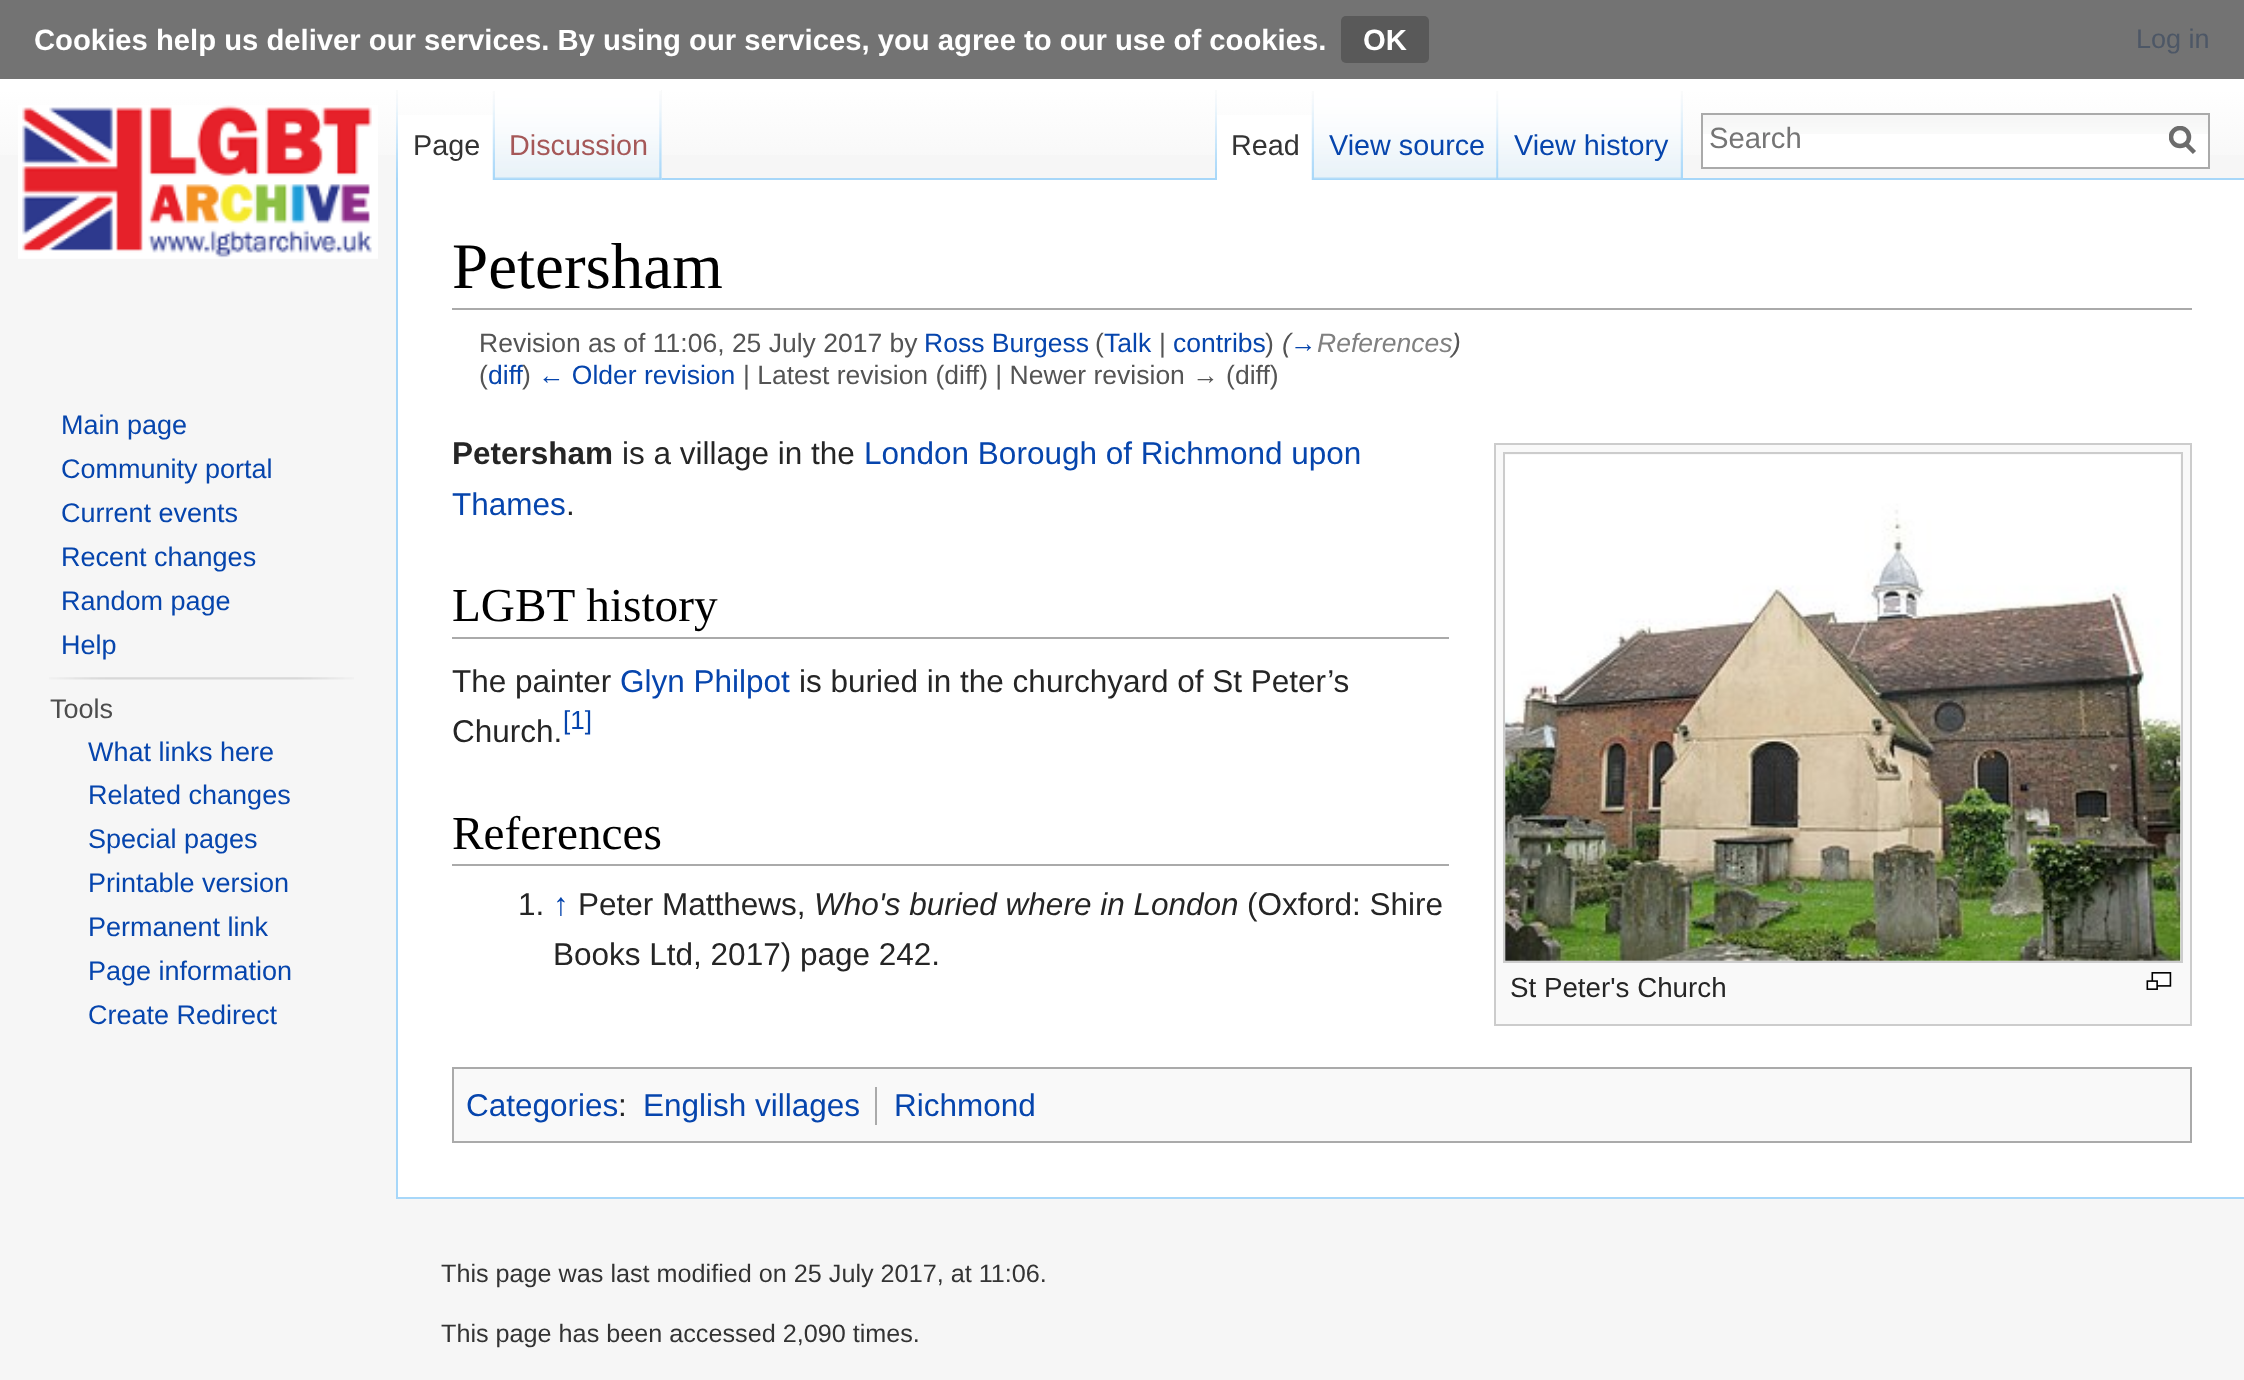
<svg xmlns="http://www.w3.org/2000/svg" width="2244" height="1380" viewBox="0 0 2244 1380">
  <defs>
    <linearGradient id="g1" gradientUnits="userSpaceOnUse" x1="1123" y1="0" x2="1123" y2="180"><stop offset="0.5" stop-color="rgb(255,255,255)"/><stop offset="1" stop-color="rgb(246,246,246)"/></linearGradient>
    <linearGradient id="g2" gradientUnits="userSpaceOnUse" x1="1123" y1="0" x2="1123" y2="180"><stop offset="0.5" stop-color="rgb(115,115,115)"/><stop offset="1" stop-color="rgb(113,113,113)"/></linearGradient>
    <clipPath id="clip1"><rect x="2169" y="126" width="27" height="29"/></clipPath>
  </defs>
  <rect width="100%" height="100%" fill="rgb(246,246,246)"/>
  <rect x="0" y="79" width="2244" height="76" fill="url(#g1)"/>
  <rect x="0" y="0" width="2244" height="79" fill="url(#g2)"/>
  <text x="34" y="50" font-family="Liberation Sans" font-size="29.25" font-weight="bold" fill="rgb(255,255,255)">Cookies help us deliver our services. By using our services, you agree to our use of cookies.</text>
  <rect x="1341" y="16" width="88" height="47" rx="5" fill="rgb(89,89,89)"/>
  <text x="1363" y="50" font-family="Liberation Sans" font-size="29.25" font-weight="bold" fill="rgb(255,255,255)">OK</text>
  <text x="2136" y="48" font-family="Liberation Sans" font-size="27" fill="rgb(77,87,102)">Log in</text>
  <image x="396" y="90" width="2" height="88" href="pic1.png"/>
  <rect x="398" y="115" width="97" height="65" fill="rgb(255,255,255)"/>
  <image x="492" y="91" width="3" height="89" href="pic2.png"/>
  <text x="413" y="155" font-family="Liberation Sans" font-size="28.75" fill="rgb(51,51,51)">Page</text>
  <rect x="661" y="90" width="1" height="90" fill="rgb(243,243,243)"/>
  <image x="495" y="90" width="167" height="90" href="pic3.png"/>
  <image x="659" y="91" width="3" height="89" href="pic4.png"/>
  <text x="509" y="155" font-family="Liberation Sans" font-size="28.75" fill="rgb(165,88,88)">Discussion</text>
  <image x="1215" y="90" width="2" height="88" href="pic1.png"/>
  <rect x="662" y="178" width="1582" height="2" fill="rgb(167,215,249)"/>
  <rect x="1217" y="115" width="97" height="65" fill="rgb(255,255,255)"/>
  <image x="1311" y="91" width="3" height="89" href="pic2.png"/>
  <text x="1231" y="155" font-family="Liberation Sans" font-size="28.75" fill="rgb(51,51,51)">Read</text>
  <image x="1314" y="90" width="185" height="90" href="pic5.png"/>
  <image x="1496" y="91" width="3" height="89" href="pic4.png"/>
  <text x="1329" y="155" font-family="Liberation Sans" font-size="28.75" fill="rgb(6,69,173)">View source</text>
  <image x="1498" y="90" width="185" height="90" href="pic6.png"/>
  <image x="1680" y="91" width="3" height="88" href="pic7.png"/>
  <text x="1514" y="155" font-family="Liberation Sans" font-size="28.75" fill="rgb(6,69,173)">View history</text>
  <rect x="1703" y="134" width="505" height="33" fill="rgb(255,255,255)"/>
  <image x="1703" y="115" width="505" height="19" href="pic8.png"/>
  <rect x="1702" y="114" width="507" height="54" fill="none" stroke="rgb(170,170,170)" stroke-width="2"/>
  <text x="1709" y="148" font-family="Liberation Sans" font-size="29.25" fill="rgb(117,117,117)">Search</text>
  <path d="M2194.5 152.5L2185.5 143.5" fill="none" stroke="rgb(108,108,108)" stroke-width="4.5"/>
  <g clip-path="url(#clip1)">
    <circle cx="2180" cy="137" r="9" fill="none" stroke="rgb(108,108,108)" stroke-width="4.5"/>
  </g>
  <image x="18" y="105" width="360" height="154" href="pic9.png"/>
  <g font-family="Liberation Sans" font-size="27" fill="rgb(6,69,173)">
    <text>
      <tspan x="61" y="434">Main page</tspan>
      <tspan x="61" y="478">Community portal</tspan>
      <tspan x="61" y="522">Current events</tspan>
      <tspan x="61" y="566">Recent changes</tspan>
      <tspan x="61" y="610">Random page</tspan>
      <tspan x="61" y="654">Help</tspan>
    </text>
  </g>
  <image x="49" y="677" width="305" height="3" href="pic10.png"/>
  <text x="50" y="718" font-family="Liberation Sans" font-size="27" fill="rgb(77,77,77)">Tools</text>
  <g font-family="Liberation Sans" font-size="27" fill="rgb(6,69,173)">
    <text>
      <tspan x="88" y="761">What links here</tspan>
      <tspan x="88" y="804">Related changes</tspan>
      <tspan x="88" y="848">Special pages</tspan>
      <tspan x="88" y="892">Printable version</tspan>
      <tspan x="88" y="936">Permanent link</tspan>
      <tspan x="88" y="980">Page information</tspan>
      <tspan x="88" y="1024">Create Redirect</tspan>
    </text>
  </g>
  <rect x="398" y="180" width="1846" height="1017" fill="rgb(255,255,255)"/>
  <rect x="396" y="1197" width="1848" height="2" fill="rgb(167,215,249)"/>
  <rect x="396" y="178" width="2" height="1021" fill="rgb(167,215,249)"/>
  <rect x="452" y="308" width="1740" height="2" fill="rgb(170,170,170)"/>
  <text x="452" y="288" font-family="Liberation Serif" font-size="65" fill="rgb(0,0,0)">Petersham</text>
  <text x="479" y="352" font-family="Liberation Sans" font-size="26.5" fill="rgb(84,84,84)">Revision as of 11:06, 25 July 2017 by</text>
  <text x="924" y="352" font-family="Liberation Sans" font-size="26.5" fill="rgb(6,69,173)">Ross Burgess</text>
  <text x="1095" y="352" font-family="Liberation Sans" font-size="26.5" fill="rgb(84,84,84)">(</text>
  <text x="1104" y="352" font-family="Liberation Sans" font-size="26.5" fill="rgb(6,69,173)">Talk</text>
  <text x="1159" y="352" font-family="Liberation Sans" font-size="26.5" fill="rgb(84,84,84)">|</text>
  <text x="1173" y="352" font-family="Liberation Sans" font-size="26.5" fill="rgb(6,69,173)">contribs</text>
  <text x="1265" y="352" font-family="Liberation Sans" font-size="26.5" fill="rgb(84,84,84)">)</text>
  <text x="1282" y="352" font-family="Liberation Sans" font-size="26.5" font-style="italic" fill="rgb(84,84,84)">(</text>
  <text x="1290" y="352" font-family="Liberation Sans" font-size="26.5" font-style="italic" fill="rgb(6,69,173)">→</text>
  <text x="1317" y="352" font-family="Liberation Sans" font-size="26.5" font-style="italic" fill="rgb(128,128,128)">References</text>
  <text x="1452" y="352" font-family="Liberation Sans" font-size="26.5" font-style="italic" fill="rgb(84,84,84)">)</text>
  <text x="479" y="384" font-family="Liberation Sans" font-size="26.5" fill="rgb(84,84,84)">(</text>
  <text x="488" y="384" font-family="Liberation Sans" font-size="26.5" fill="rgb(6,69,173)">diff</text>
  <text x="522" y="384" font-family="Liberation Sans" font-size="26.5" fill="rgb(84,84,84)">)</text>
  <text x="538" y="384" font-family="Liberation Sans" font-size="26.5" fill="rgb(6,69,173)">← Older revision</text>
  <text x="743" y="384" font-family="Liberation Sans" font-size="26.5" fill="rgb(84,84,84)">| Latest revision (diff) | Newer revision → (diff)</text>
  <text x="452" y="464" font-family="Liberation Sans" font-size="31.5" font-weight="bold" fill="rgb(37,37,37)">Petersham</text>
  <text x="622" y="464" font-family="Liberation Sans" font-size="31.5" fill="rgb(37,37,37)">is a village in the</text>
  <g font-family="Liberation Sans" font-size="31.5" fill="rgb(6,69,173)">
    <text x="864" y="464">London Borough of Richmond upon</text>
    <text x="452" y="515">Thames</text>
  </g>
  <text x="566" y="515" font-family="Liberation Sans" font-size="31.5" fill="rgb(37,37,37)">.</text>
  <rect x="452" y="637" width="997" height="2" fill="rgb(170,170,170)"/>
  <text x="452" y="621" font-family="Liberation Serif" font-size="47.25" fill="rgb(0,0,0)">LGBT history</text>
  <text x="452" y="692" font-family="Liberation Sans" font-size="31.5" fill="rgb(37,37,37)">The painter</text>
  <text x="620" y="692" font-family="Liberation Sans" font-size="31.5" fill="rgb(6,69,173)">Glyn Philpot</text>
  <g font-family="Liberation Sans" font-size="31.5" fill="rgb(37,37,37)">
    <text x="799" y="692">is buried in the churchyard of St Peter’s</text>
    <text x="452" y="742">Church.</text>
  </g>
  <text x="563" y="729" font-family="Liberation Sans" font-size="26" fill="rgb(6,69,173)">[1]</text>
  <rect x="452" y="864" width="997" height="2" fill="rgb(170,170,170)"/>
  <text x="452" y="849" font-family="Liberation Serif" font-size="47.25" fill="rgb(0,0,0)">References</text>
  <text x="518" y="915" font-family="Liberation Sans" font-size="31.5" fill="rgb(37,37,37)">1.</text>
  <text x="553" y="915" font-family="Liberation Sans" font-size="31.5" fill="rgb(6,69,173)">↑</text>
  <text x="578" y="915" font-family="Liberation Sans" font-size="31.5" fill="rgb(37,37,37)">Peter Matthews,</text>
  <text x="814" y="915" font-family="Liberation Sans" font-size="31.5" font-style="italic" fill="rgb(37,37,37)">Who's buried where in London</text>
  <g font-family="Liberation Sans" font-size="31.5" fill="rgb(37,37,37)">
    <text x="1247" y="915">(Oxford: Shire</text>
    <text x="553" y="965">Books Ltd, 2017) page 242.</text>
  </g>
  <rect x="1495" y="444" width="696" height="581" fill="rgb(249,249,249)" stroke="rgb(204,204,204)" stroke-width="2"/>
  <rect x="1504" y="453" width="678" height="509" fill="none" stroke="rgb(204,204,204)" stroke-width="2"/>
  <image x="1505" y="455" width="676" height="506" href="pic11.png"/>
  <text x="1510" y="997" font-family="Liberation Sans" font-size="27.75" fill="rgb(37,37,37)">St Peter's Church</text>
  <image x="2146" y="972" width="26" height="18" href="pic12.png"/>
  <rect x="453" y="1068" width="1738" height="74" fill="rgb(249,249,249)" stroke="rgb(170,170,170)" stroke-width="2"/>
  <text x="466" y="1116" font-family="Liberation Sans" font-size="31.5" fill="rgb(6,69,173)">Categories</text>
  <text x="618" y="1116" font-family="Liberation Sans" font-size="31.5" fill="rgb(37,37,37)">:</text>
  <text x="643" y="1116" font-family="Liberation Sans" font-size="31.5" fill="rgb(6,69,173)">English villages</text>
  <rect x="875" y="1087" width="2" height="38" fill="rgb(170,170,170)"/>
  <text x="894" y="1116" font-family="Liberation Sans" font-size="31.5" fill="rgb(6,69,173)">Richmond</text>
  <g font-family="Liberation Sans" font-size="25.2" fill="rgb(51,51,51)">
    <text x="441" y="1282">This page was last modified on 25 July 2017, at 11:06.</text>
    <text x="441" y="1342">This page has been accessed 2,090 times.</text>
  </g>
</svg>
